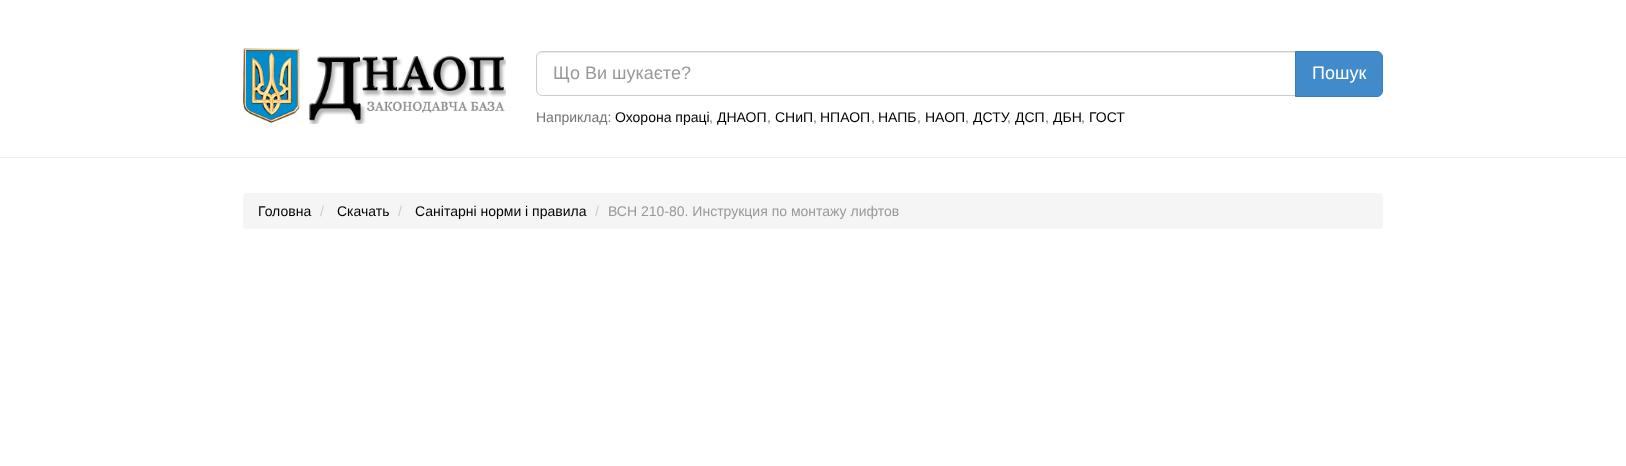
<svg xmlns="http://www.w3.org/2000/svg" width="1626" height="466" viewBox="0 0 1626 466">
  <rect width="100%" height="100%" fill="rgb(255,255,255)"/>
  <image x="243" y="48" width="263" height="76" href="pic1.png"/>
  <path d="M542 53H1295V52H542C539 52 537 54 537 57V58C537 55 539 53 542 53Z" fill="rgb(236,236,236)"/>
  <path d="M542 51.5H1295.5V95.5H542C539 95.5 536.5 93 536.5 90V57C536.5 54 539 51.5 542 51.5Z" fill="none" stroke="rgb(204,204,204)"/>
  <text x="553" y="79" font-family="Liberation Sans" font-size="18" fill="rgb(153,153,153)">Що Ви шукаєте?</text>
  <path d="M1295.5 51.5H1377C1380 51.5 1382.5 54 1382.5 57V91C1382.5 94 1380 96.5 1377 96.5H1295.5Z" fill="rgb(66,139,202)" stroke="rgb(53,126,189)"/>
  <text x="1312" y="79" font-family="Liberation Sans" font-size="18" fill="rgb(255,255,255)">Пошук</text>
  <text x="536" y="122" font-family="Liberation Sans" font-size="14" fill="rgb(115,115,115)">Наприклад:</text>
  <text x="615" y="122" font-family="Liberation Sans" font-size="14" fill="rgb(0,0,0)">Охорона праці</text>
  <text x="709" y="122" font-family="Liberation Sans" font-size="14" fill="rgb(115,115,115)">,</text>
  <text x="717" y="122" font-family="Liberation Sans" font-size="14" fill="rgb(0,0,0)">ДНАОП</text>
  <text x="767" y="122" font-family="Liberation Sans" font-size="14" fill="rgb(115,115,115)">,</text>
  <text x="775" y="122" font-family="Liberation Sans" font-size="14" fill="rgb(0,0,0)">СНиП</text>
  <text x="813" y="122" font-family="Liberation Sans" font-size="14" fill="rgb(115,115,115)">,</text>
  <text x="820" y="122" font-family="Liberation Sans" font-size="14" fill="rgb(0,0,0)">НПАОП</text>
  <text x="871" y="122" font-family="Liberation Sans" font-size="14" fill="rgb(115,115,115)">,</text>
  <text x="878" y="122" font-family="Liberation Sans" font-size="14" fill="rgb(0,0,0)">НАПБ</text>
  <text x="917" y="122" font-family="Liberation Sans" font-size="14" fill="rgb(115,115,115)">,</text>
  <text x="925" y="122" font-family="Liberation Sans" font-size="14" fill="rgb(0,0,0)">НАОП</text>
  <text x="965" y="122" font-family="Liberation Sans" font-size="14" fill="rgb(115,115,115)">,</text>
  <g font-family="Liberation Sans" font-size="14" fill="rgb(0,0,0)">
    <text x="973" y="122">ДСТУ</text>
    <text x="1015" y="122">ДСП</text>
    <text x="1053" y="122">ДБН</text>
    <text x="1089" y="122">ГОСТ</text>
  </g>
  <g font-family="Liberation Sans" font-size="14" fill="rgb(115,115,115)">
    <text x="1007" y="122">,</text>
    <text x="1045" y="122">,</text>
    <text x="1081" y="122">,</text>
  </g>
  <rect x="0" y="157" width="1626" height="1" fill="rgb(238,238,238)"/>
  <rect x="243" y="193" width="1140" height="36" rx="4" fill="rgb(245,245,245)"/>
  <text x="258" y="216" font-family="Liberation Sans" font-size="14" fill="rgb(0,0,0)">Головна</text>
  <text x="320" y="216" font-family="Liberation Sans" font-size="14" fill="rgb(204,204,204)">/</text>
  <text x="337" y="216" font-family="Liberation Sans" font-size="14" fill="rgb(0,0,0)">Скачать</text>
  <text x="398" y="216" font-family="Liberation Sans" font-size="14" fill="rgb(204,204,204)">/</text>
  <text x="415" y="216" font-family="Liberation Sans" font-size="14" fill="rgb(0,0,0)">Санітарні норми і правила</text>
  <text x="595" y="216" font-family="Liberation Sans" font-size="14" fill="rgb(204,204,204)">/</text>
  <text x="608" y="216" font-family="Liberation Sans" font-size="14" fill="rgb(153,153,153)">ВСН 210-80. Инструкция по монтажу лифтов</text>
</svg>
